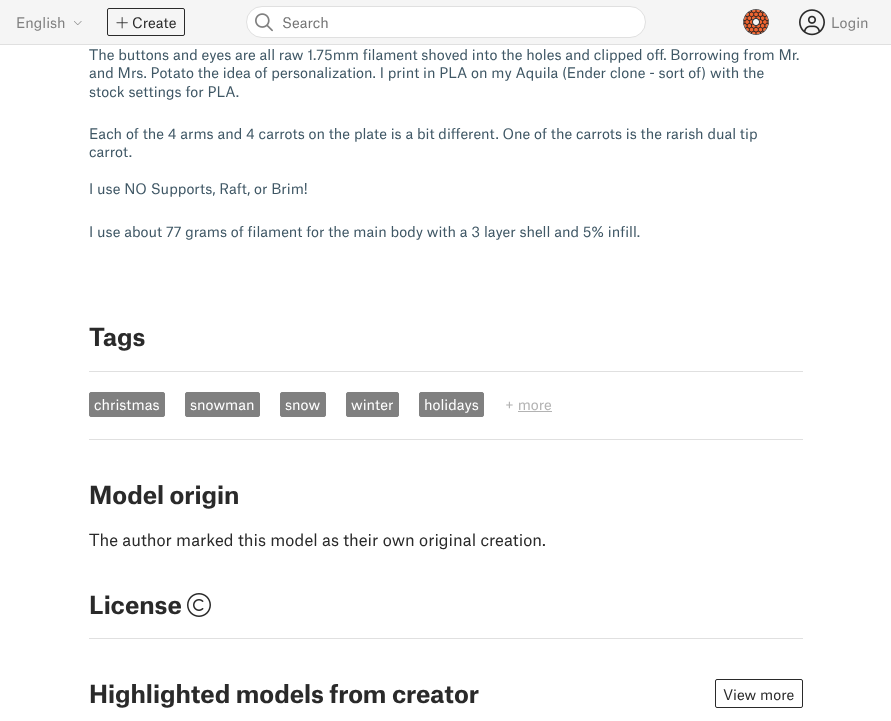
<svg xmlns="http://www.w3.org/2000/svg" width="891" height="721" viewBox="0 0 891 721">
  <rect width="100%" height="100%" fill="rgb(255,255,255)"/>
  <rect x="0" y="0" width="891" height="44" fill="rgb(245,245,245)"/>
  <text x="16" y="28" font-family="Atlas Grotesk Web" font-size="14" fill="rgb(128,128,128)">English</text>
  <image x="74" y="21" width="8" height="4" href="pic1.png"/>
  <rect x="107.5" y="8.5" width="77" height="27" rx="1.5" fill="none" stroke="rgb(42,42,42)"/>
  <image x="116" y="17" width="12" height="12" href="pic2.png"/>
  <text x="132" y="28" font-family="Atlas Grotesk Web" font-size="14" fill="rgb(42,42,42)">Create</text>
  <rect x="246.5" y="6.5" width="399" height="31" rx="15.5" fill="rgb(255,255,255)" stroke="rgb(224,224,224)"/>
  <image x="255" y="13" width="18" height="19" href="pic3.png"/>
  <text x="282" y="28" font-family="Atlas Grotesk Web" font-size="14" fill="rgb(117,117,117)">Search</text>
  <image x="743" y="9" width="26" height="26" href="pic4.png"/>
  <image x="799" y="9" width="26" height="27" href="pic5.png"/>
  <text x="831" y="28" font-family="Atlas Grotesk Web" font-size="14" fill="rgb(128,128,128)">Login</text>
  <rect x="0" y="44" width="891" height="1" fill="rgb(224,224,224)"/>
  <g font-family="Atlas Grotesk Web" font-size="14" fill="rgb(63,87,101)">
    <text>
      <tspan x="89" y="60">The buttons and eyes are all raw 1.75mm filament shoved into the holes and clipped off. Borrowing from Mr.</tspan>
      <tspan x="89" y="78">and Mrs. Potato the idea of personalization. I print in PLA on my Aquila (Ender clone - sort of) with the</tspan>
      <tspan x="89" y="97">stock settings for PLA.</tspan>
    </text>
    <text>
      <tspan x="89" y="139">Each of the 4 arms and 4 carrots on the plate is a bit different. One of the carrots is the rarish dual tip</tspan>
      <tspan x="89" y="157">carrot.</tspan>
    </text>
    <text x="89" y="194">I use NO Supports, Raft, or Brim!</text>
    <text x="89" y="237">I use about 77 grams of filament for the main body with a 3 layer shell and 5% infill.</text>
  </g>
  <text x="89" y="346" font-family="Atlas Grotesk Web" font-size="24" font-weight="bold" fill="rgb(42,42,42)">Tags</text>
  <rect x="89" y="371" width="714" height="1" fill="rgb(224,224,224)"/>
  <rect x="89.5" y="392.5" width="75" height="24" rx="1.5" fill="rgb(128,128,128)" stroke="rgb(128,128,128)"/>
  <text x="94" y="410" font-family="Atlas Grotesk Web" font-size="14" fill="rgb(255,255,255)">christmas</text>
  <rect x="185.5" y="392.5" width="74" height="24" rx="1.5" fill="rgb(128,128,128)" stroke="rgb(128,128,128)"/>
  <text x="190" y="410" font-family="Atlas Grotesk Web" font-size="14" fill="rgb(255,255,255)">snowman</text>
  <rect x="280.5" y="392.5" width="45" height="24" rx="1.5" fill="rgb(128,128,128)" stroke="rgb(128,128,128)"/>
  <text x="285" y="410" font-family="Atlas Grotesk Web" font-size="14" fill="rgb(255,255,255)">snow</text>
  <rect x="346.5" y="392.5" width="52" height="24" rx="1.5" fill="rgb(128,128,128)" stroke="rgb(128,128,128)"/>
  <text x="351" y="410" font-family="Atlas Grotesk Web" font-size="14" fill="rgb(255,255,255)">winter</text>
  <rect x="419.5" y="392.5" width="64" height="24" rx="1.5" fill="rgb(128,128,128)" stroke="rgb(128,128,128)"/>
  <text x="424" y="410" font-family="Atlas Grotesk Web" font-size="14" fill="rgb(255,255,255)">holidays</text>
  <text x="505" y="410" font-family="Atlas Grotesk Web" font-size="14" fill="rgb(179,179,179)">+ more</text>
  <rect x="518" y="411" width="34" height="1" fill="rgb(179,179,179)"/>
  <rect x="89" y="439" width="714" height="1" fill="rgb(224,224,224)"/>
  <text x="89" y="504" font-family="Atlas Grotesk Web" font-size="24" font-weight="bold" fill="rgb(42,42,42)">Model origin</text>
  <text x="89" y="546" font-family="Atlas Grotesk Web" font-size="16" fill="rgb(42,42,42)">The author marked this model as their own original creation.</text>
  <text x="89" y="614" font-family="Atlas Grotesk Web" font-size="24" font-weight="bold" fill="rgb(42,42,42)">License</text>
  <image x="187" y="593" width="24" height="24" href="pic6.png"/>
  <rect x="89" y="638" width="714" height="1" fill="rgb(224,224,224)"/>
  <text x="89" y="703" font-family="Atlas Grotesk Web" font-size="24" font-weight="bold" fill="rgb(42,42,42)">Highlighted models from creator</text>
  <rect x="715.5" y="679.5" width="87" height="28" rx="1.5" fill="none" stroke="rgb(42,42,42)"/>
  <text x="723" y="700" font-family="Atlas Grotesk Web" font-size="14" fill="rgb(42,42,42)">View more</text>
</svg>
